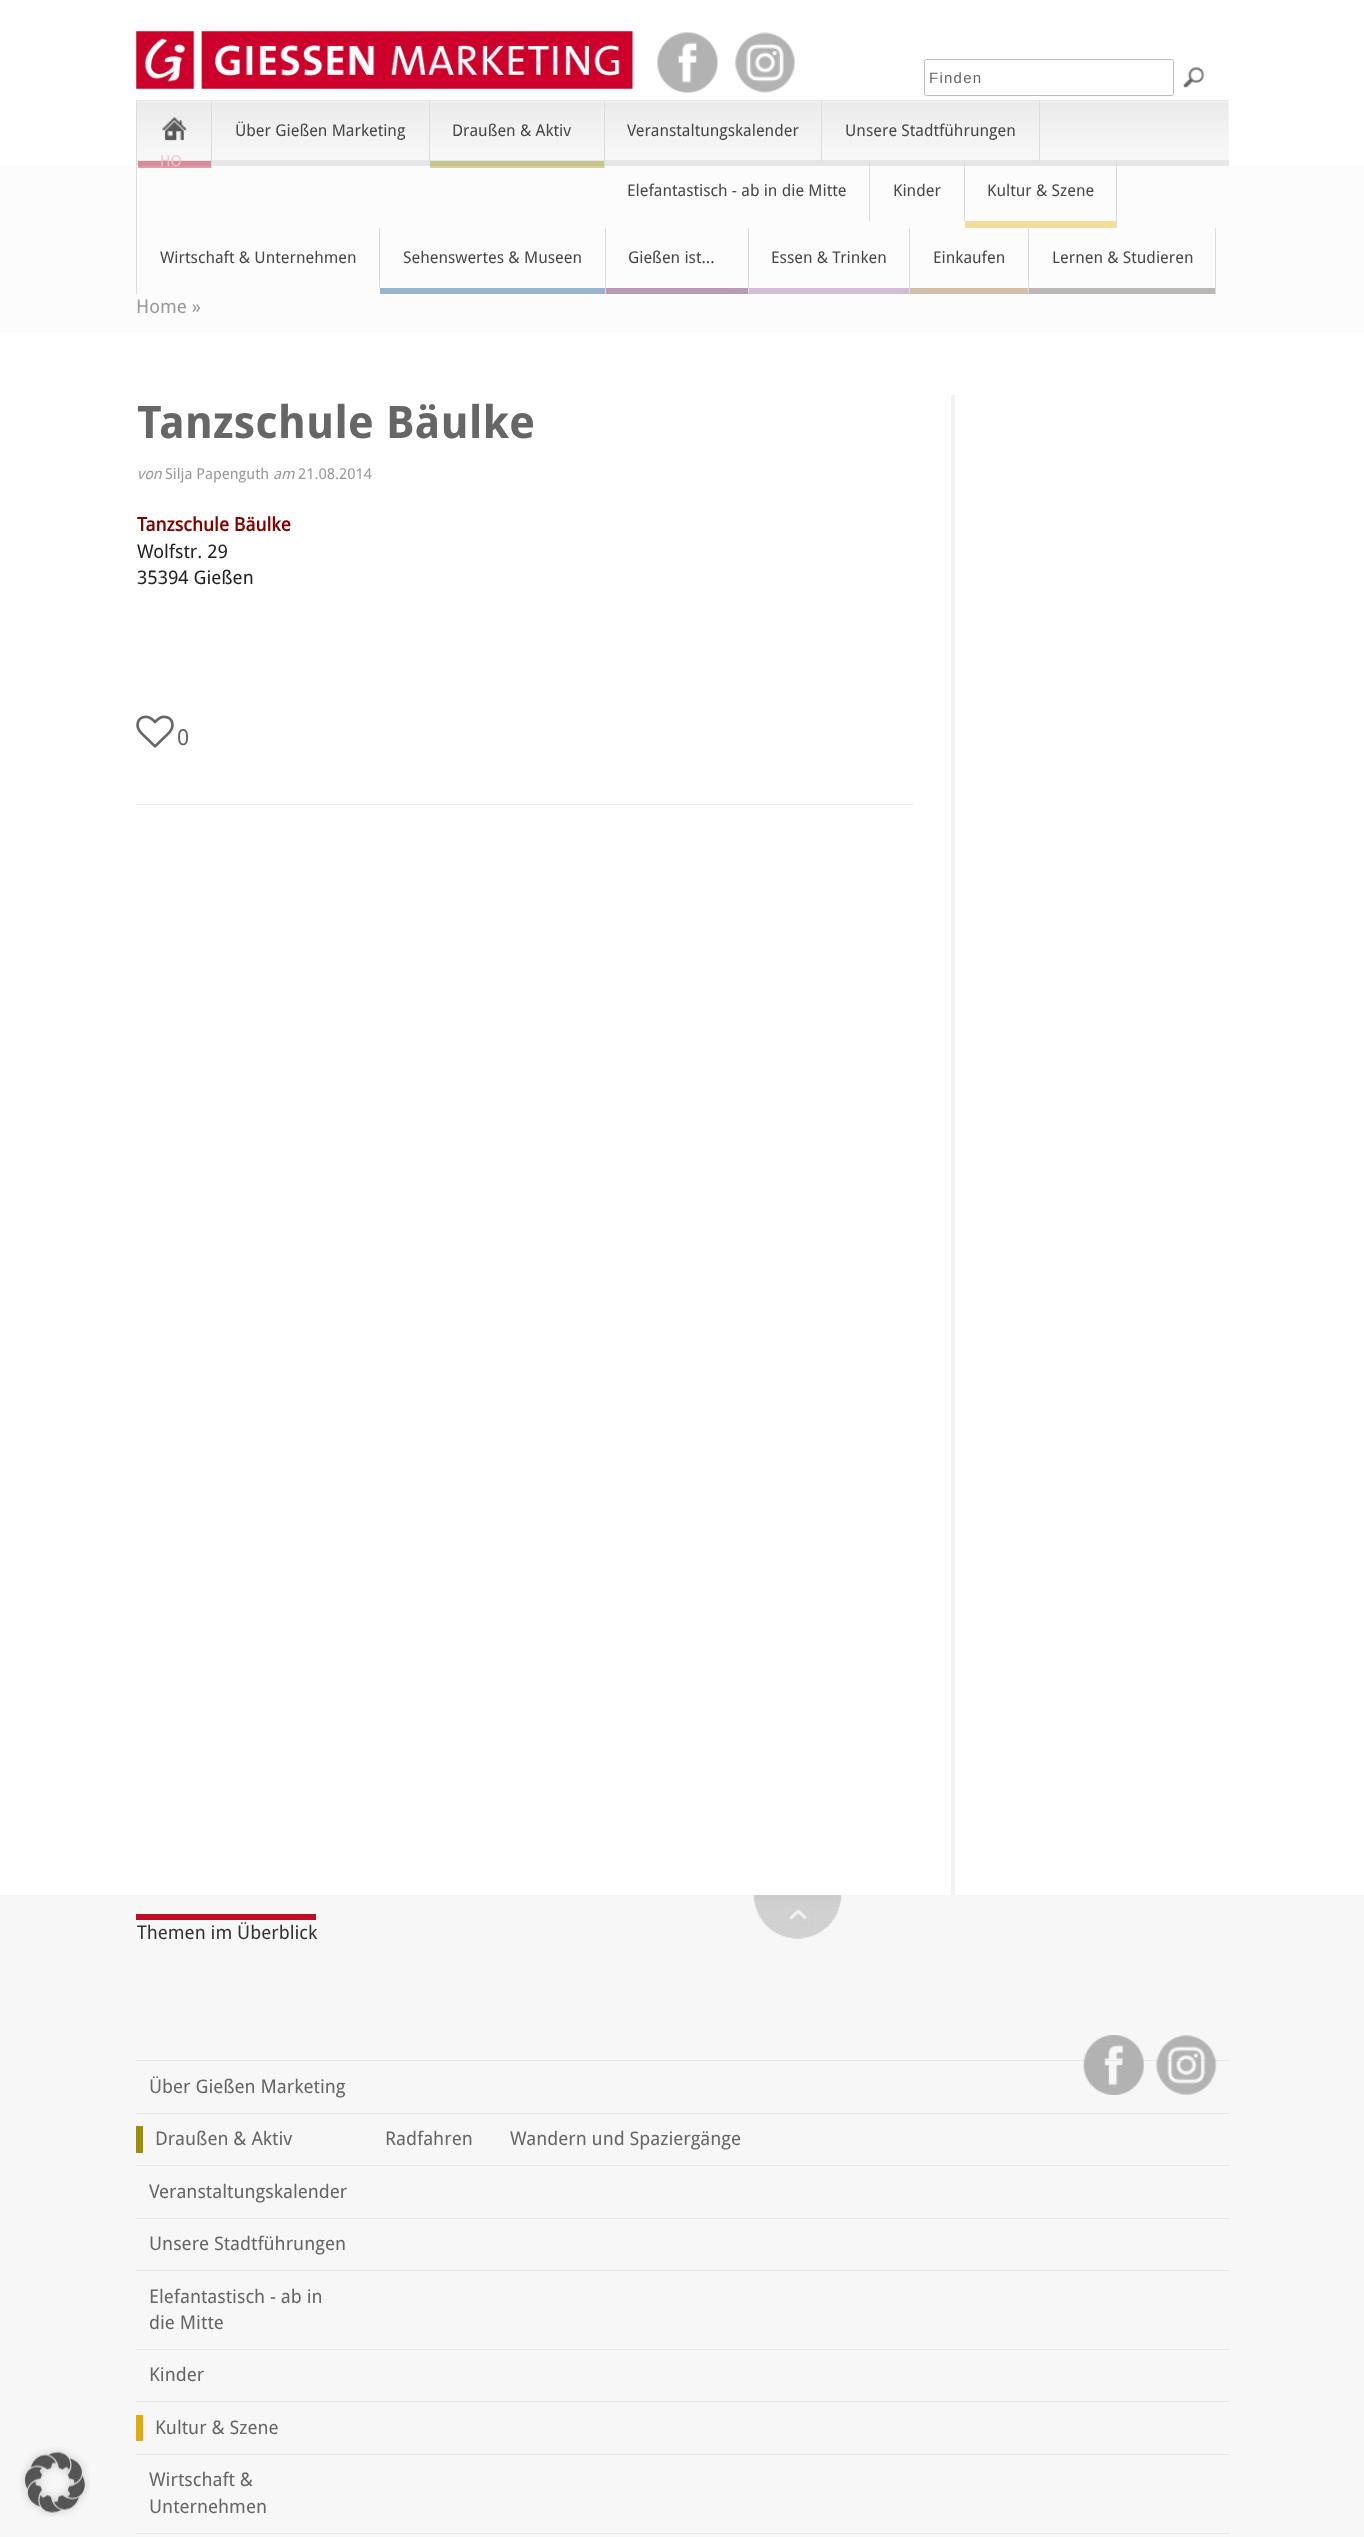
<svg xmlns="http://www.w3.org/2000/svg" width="1364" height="2537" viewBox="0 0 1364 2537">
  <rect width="100%" height="100%" fill="rgb(255,255,255)"/>
  <image x="136" y="31" width="497" height="58" href="pic1.png"/>
  <image x="657" y="32" width="61" height="61" href="pic2.png"/>
  <image x="735" y="32" width="60" height="61" href="pic3.png"/>
  <rect x="924.5" y="59.5" width="249" height="36" rx="2" fill="none" stroke="rgb(187,187,187)"/>
  <text x="929" y="83" font-family="Liberation Sans" font-size="15" letter-spacing="1.25" fill="rgb(102,102,102)">Finden</text>
  <image x="1183" y="67" width="21" height="21" href="pic4.png"/>
  <image x="137" y="101" width="1092" height="59" href="pic5.png"/>
  <rect x="136" y="100" width="1093" height="1" fill="rgb(230,230,230)"/>
  <rect x="136" y="160" width="1093" height="6" fill="rgb(230,230,230)"/>
  <rect x="430" y="161" width="174" height="5" fill="rgb(201,196,140)"/>
  <rect x="138" y="161" width="73" height="5" fill="rgb(216,141,155)"/>
  <rect x="0" y="166" width="1364" height="167" fill="rgb(252,252,252)"/>
  <rect x="136" y="101" width="1" height="193" fill="rgb(220,220,220)"/>
  <rect x="429" y="101" width="1" height="60" fill="rgb(220,220,220)"/>
  <text x="235" y="136" font-family="Droid Sans" font-size="16.25" fill="rgb(72,72,72)">Über Gießen Marketing</text>
  <rect x="604" y="101" width="1" height="67" fill="rgb(220,220,220)"/>
  <text x="452" y="136" font-family="Droid Sans" font-size="16.25" fill="rgb(72,72,72)">Draußen &amp; Aktiv</text>
  <rect x="821" y="101" width="1" height="60" fill="rgb(220,220,220)"/>
  <text x="627" y="136" font-family="Droid Sans" font-size="16.25" fill="rgb(72,72,72)">Veranstaltungskalender</text>
  <rect x="1039" y="101" width="1" height="60" fill="rgb(220,220,220)"/>
  <text x="845" y="136" font-family="Droid Sans" font-size="16.25" fill="rgb(72,72,72)">Unsere Stadtführungen</text>
  <rect x="211" y="101" width="1" height="67" fill="rgb(220,220,220)"/>
  <image x="162" y="117" width="25" height="24" href="pic6.png"/>
  <rect x="138" y="166" width="73" height="2" fill="rgb(230,154,168)"/>
  <text x="160" y="166" font-family="Droid Sans" font-size="15" fill="rgb(232,198,204)">HO</text>
  <rect x="869" y="161" width="1" height="60" fill="rgb(220,220,220)"/>
  <text x="627" y="196" font-family="Droid Sans" font-size="16.25" fill="rgb(72,72,72)">Elefantastisch - ab in die Mitte</text>
  <rect x="964" y="161" width="1" height="60" fill="rgb(220,220,220)"/>
  <text x="893" y="196" font-family="Droid Sans" font-size="16.25" fill="rgb(72,72,72)">Kinder</text>
  <rect x="1116" y="161" width="1" height="67" fill="rgb(220,220,220)"/>
  <text x="987" y="196" font-family="Droid Sans" font-size="16.25" fill="rgb(72,72,72)">Kultur &amp; Szene</text>
  <rect x="965" y="221" width="151" height="7" fill="rgb(241,220,156)"/>
  <rect x="379" y="228" width="1" height="60" fill="rgb(220,220,220)"/>
  <text x="160" y="263" font-family="Droid Sans" font-size="16.25" fill="rgb(72,72,72)">Wirtschaft &amp; Unternehmen</text>
  <rect x="605" y="228" width="1" height="66" fill="rgb(220,220,220)"/>
  <text x="403" y="263" font-family="Droid Sans" font-size="16.25" fill="rgb(72,72,72)">Sehenswertes &amp; Museen</text>
  <rect x="380" y="288" width="225" height="6" fill="rgb(151,180,202)"/>
  <rect x="748" y="228" width="1" height="66" fill="rgb(220,220,220)"/>
  <text x="628" y="263" font-family="Droid Sans" font-size="16.25" fill="rgb(72,72,72)">Gießen ist...</text>
  <rect x="606" y="288" width="142" height="6" fill="rgb(184,154,178)"/>
  <rect x="909" y="228" width="1" height="66" fill="rgb(220,220,220)"/>
  <text x="771" y="263" font-family="Droid Sans" font-size="16.25" fill="rgb(72,72,72)">Essen &amp; Trinken</text>
  <rect x="749" y="288" width="160" height="6" fill="rgb(211,190,216)"/>
  <rect x="1028" y="228" width="1" height="66" fill="rgb(220,220,220)"/>
  <text x="933" y="263" font-family="Droid Sans" font-size="16.25" fill="rgb(72,72,72)">Einkaufen</text>
  <rect x="910" y="288" width="118" height="6" fill="rgb(211,191,170)"/>
  <rect x="1215" y="228" width="1" height="66" fill="rgb(220,220,220)"/>
  <text x="1052" y="263" font-family="Droid Sans" font-size="16.25" fill="rgb(72,72,72)">Lernen &amp; Studieren</text>
  <rect x="1029" y="288" width="186" height="6" fill="rgb(188,181,178)"/>
  <rect x="430" y="166" width="174" height="2" fill="rgb(214,209,153)"/>
  <text x="136" y="313" font-family="Droid Sans" font-size="18.75" fill="rgb(153,153,153)">Home »</text>
  <rect x="951" y="395" width="4" height="1500" fill="rgb(242,242,242)"/>
  <text x="137" y="438" font-family="Droid Sans" font-size="45" font-weight="bold" fill="rgb(102,102,102)">Tanzschule Bäulke</text>
  <text x="137" y="479" font-family="Droid Sans" font-size="15" font-style="italic" fill="rgb(153,153,153)">von</text>
  <text x="165" y="479" font-family="Droid Sans" font-size="15" fill="rgb(153,153,153)">Silja Papenguth</text>
  <text x="273" y="479" font-family="Droid Sans" font-size="15" font-style="italic" fill="rgb(153,153,153)">am</text>
  <text x="298" y="479" font-family="Droid Sans" font-size="15" fill="rgb(153,153,153)">21.08.2014</text>
  <text x="137" y="531" font-family="'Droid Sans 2'" font-size="18.75" font-weight="bold" fill="rgb(128,0,0)">Tanzschule Bäulke</text>
  <g font-family="Droid Sans" font-size="18.75" fill="rgb(33,33,33)">
    <text>
      <tspan x="137" y="558">Wolfstr. 29</tspan>
      <tspan x="137" y="584">35394 Gießen</tspan>
    </text>
  </g>
  <image x="136" y="715" width="38" height="33" href="pic7.png"/>
  <text x="177" y="745" font-family="Droid Sans" font-size="22" fill="rgb(102,102,102)">0</text>
  <rect x="136" y="804" width="778" height="1" fill="rgb(238,238,238)"/>
  <rect x="0" y="1895" width="1364" height="642" fill="rgb(247,247,247)"/>
  <image x="20" y="2447" width="70" height="70" href="pic8.png"/>
  <rect x="136" y="1914" width="180" height="6" fill="rgb(195,11,37)"/>
  <text x="137" y="1939" font-family="Droid Sans" font-size="18.75" fill="rgb(51,51,51)">Themen im Überblick</text>
  <image x="753" y="1895" width="89" height="44" href="pic9.png"/>
  <rect x="136" y="2060" width="1093" height="1" fill="rgb(230,230,230)"/>
  <image x="1083" y="2035" width="61" height="60" href="pic10.png"/>
  <image x="1156" y="2035" width="61" height="60" href="pic11.png"/>
  <rect x="136" y="2113" width="1093" height="1" fill="rgb(230,230,230)"/>
  <text x="149" y="2093" font-family="Droid Sans" font-size="18.75" fill="rgb(102,102,102)">Über Gießen Marketing</text>
  <rect x="136" y="2165" width="1093" height="1" fill="rgb(230,230,230)"/>
  <rect x="136" y="2126" width="7" height="27" fill="rgb(157,144,4)"/>
  <g font-family="Droid Sans" font-size="18.75" fill="rgb(102,102,102)">
    <text x="155" y="2145">Draußen &amp; Aktiv</text>
    <text x="385" y="2145">Radfahren</text>
    <text x="510" y="2145">Wandern und Spaziergänge</text>
  </g>
  <rect x="136" y="2218" width="1093" height="1" fill="rgb(230,230,230)"/>
  <text x="149" y="2198" font-family="Droid Sans" font-size="18.75" fill="rgb(102,102,102)">Veranstaltungskalender</text>
  <rect x="136" y="2270" width="1093" height="1" fill="rgb(230,230,230)"/>
  <text x="149" y="2250" font-family="Droid Sans" font-size="18.75" fill="rgb(102,102,102)">Unsere Stadtführungen</text>
  <rect x="136" y="2349" width="1093" height="1" fill="rgb(230,230,230)"/>
  <g font-family="Droid Sans" font-size="18.75" fill="rgb(102,102,102)">
    <text>
      <tspan x="149" y="2303">Elefantastisch - ab in</tspan>
      <tspan x="149" y="2329">die Mitte</tspan>
    </text>
  </g>
  <rect x="136" y="2401" width="1093" height="1" fill="rgb(230,230,230)"/>
  <text x="149" y="2381" font-family="Droid Sans" font-size="18.75" fill="rgb(102,102,102)">Kinder</text>
  <rect x="136" y="2454" width="1093" height="1" fill="rgb(230,230,230)"/>
  <rect x="136" y="2415" width="7" height="26" fill="rgb(224,172,11)"/>
  <text x="155" y="2434" font-family="Droid Sans" font-size="18.75" fill="rgb(102,102,102)">Kultur &amp; Szene</text>
  <rect x="136" y="2533" width="1093" height="1" fill="rgb(230,230,230)"/>
  <g font-family="Droid Sans" font-size="18.75" fill="rgb(102,102,102)">
    <text>
      <tspan x="149" y="2486">Wirtschaft &amp;</tspan>
      <tspan x="149" y="2513">Unternehmen</tspan>
    </text>
  </g>
</svg>
